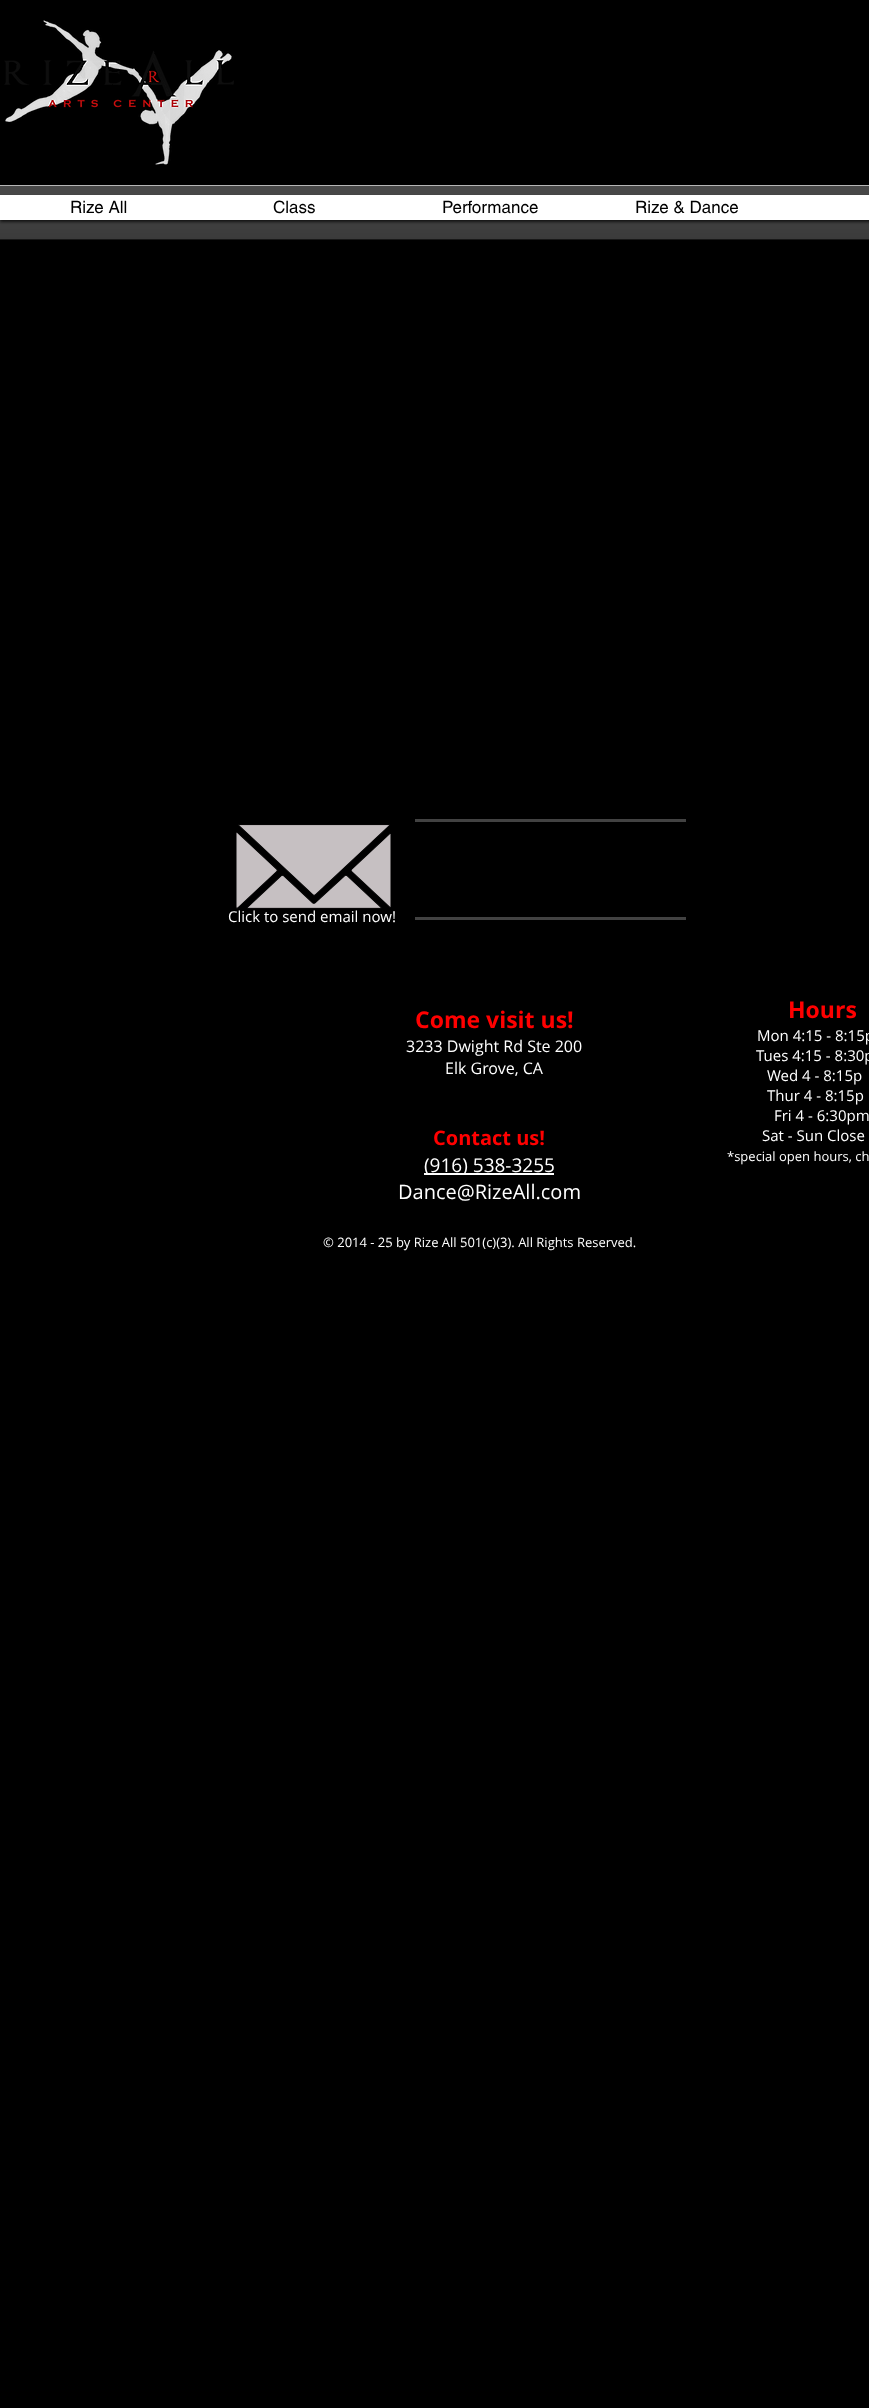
<svg xmlns="http://www.w3.org/2000/svg" width="869" height="2408" viewBox="0 0 869 2408">
  <rect width="100%" height="100%" fill="rgb(0,0,0)"/>
  <image x="4" y="20" width="230" height="145" href="pic1.png"/>
  <rect x="0" y="186" width="869" height="53" fill="rgb(10,10,10)"/>
  <image x="0" y="186" width="869" height="53" href="pic2.png"/>
  <rect x="0" y="239" width="869" height="1" fill="rgb(24,24,24)"/>
  <rect x="0" y="185" width="869" height="1" fill="rgb(182,182,182)"/>
  <rect x="0" y="197" width="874" height="25" fill="rgba(0,0,0,0.7)" filter="blur(1.5px)"/>
  <rect x="0" y="195" width="869" height="25" fill="rgb(255,255,255)"/>
  <g font-family="helvetica" font-size="17" fill="rgb(0,0,0)">
    <text x="70" y="213">Rize All</text>
    <text x="273" y="213">Class</text>
    <text x="442" y="213">Performance</text>
    <text x="635" y="213">Rize &amp; Dance</text>
  </g>
  <rect x="415" y="819" width="271" height="3" fill="rgb(66,66,66)"/>
  <image x="236" y="824" width="155" height="85" href="pic3.png"/>
  <text x="228" y="922" font-family="Open Sans" font-size="15" fill="rgb(255,255,255)">Click to send email now!</text>
  <rect x="415" y="917" width="271" height="3" fill="rgb(66,66,66)"/>
  <text x="415" y="1028" font-family="Open Sans" font-size="23" font-weight="bold" fill="rgb(255,0,0)">Come visit us!</text>
  <g font-family="Open Sans" font-size="16" fill="rgb(255,255,255)">
    <text x="406" y="1052">3233 Dwight Rd Ste 200</text>
    <text x="445" y="1074">Elk Grove, CA</text>
  </g>
  <text x="788" y="1018" font-family="Open Sans" font-size="23" font-weight="bold" fill="rgb(255,0,0)">Hours</text>
  <g font-family="Open Sans" font-size="15" fill="rgb(255,255,255)">
    <text x="757" y="1041">Mon 4:15 - 8:15p</text>
    <text x="756" y="1061">Tues 4:15 - 8:30p</text>
    <text>
      <tspan x="767" y="1081">Wed 4 - 8:15p</tspan>
      <tspan x="767" y="1101">Thur 4 - 8:15p</tspan>
    </text>
    <text x="774" y="1121">Fri 4 - 6:30pm</text>
    <text x="762" y="1141">Sat - Sun Close</text>
  </g>
  <text x="727" y="1161" font-family="Open Sans" font-size="13" fill="rgb(255,255,255)">*special open hours, ch</text>
  <text x="433" y="1145" font-family="Open Sans" font-size="20" font-weight="bold" fill="rgb(255,0,0)">Contact us!</text>
  <rect x="424" y="1173" width="130" height="2" fill="rgb(255,255,255)"/>
  <text x="424" y="1172" font-family="Open Sans" font-size="19" fill="rgb(255,255,255)">(916) 538-3255</text>
  <text x="398" y="1199" font-family="Open Sans" font-size="20" fill="rgb(255,255,255)">Dance@RizeAll.com</text>
  <text x="323" y="1247" font-family="Open Sans" font-size="13" fill="rgb(255,255,255)">© 2014 - 25 by Rize All 501(c)(3). All Rights Reserved.</text>
</svg>
